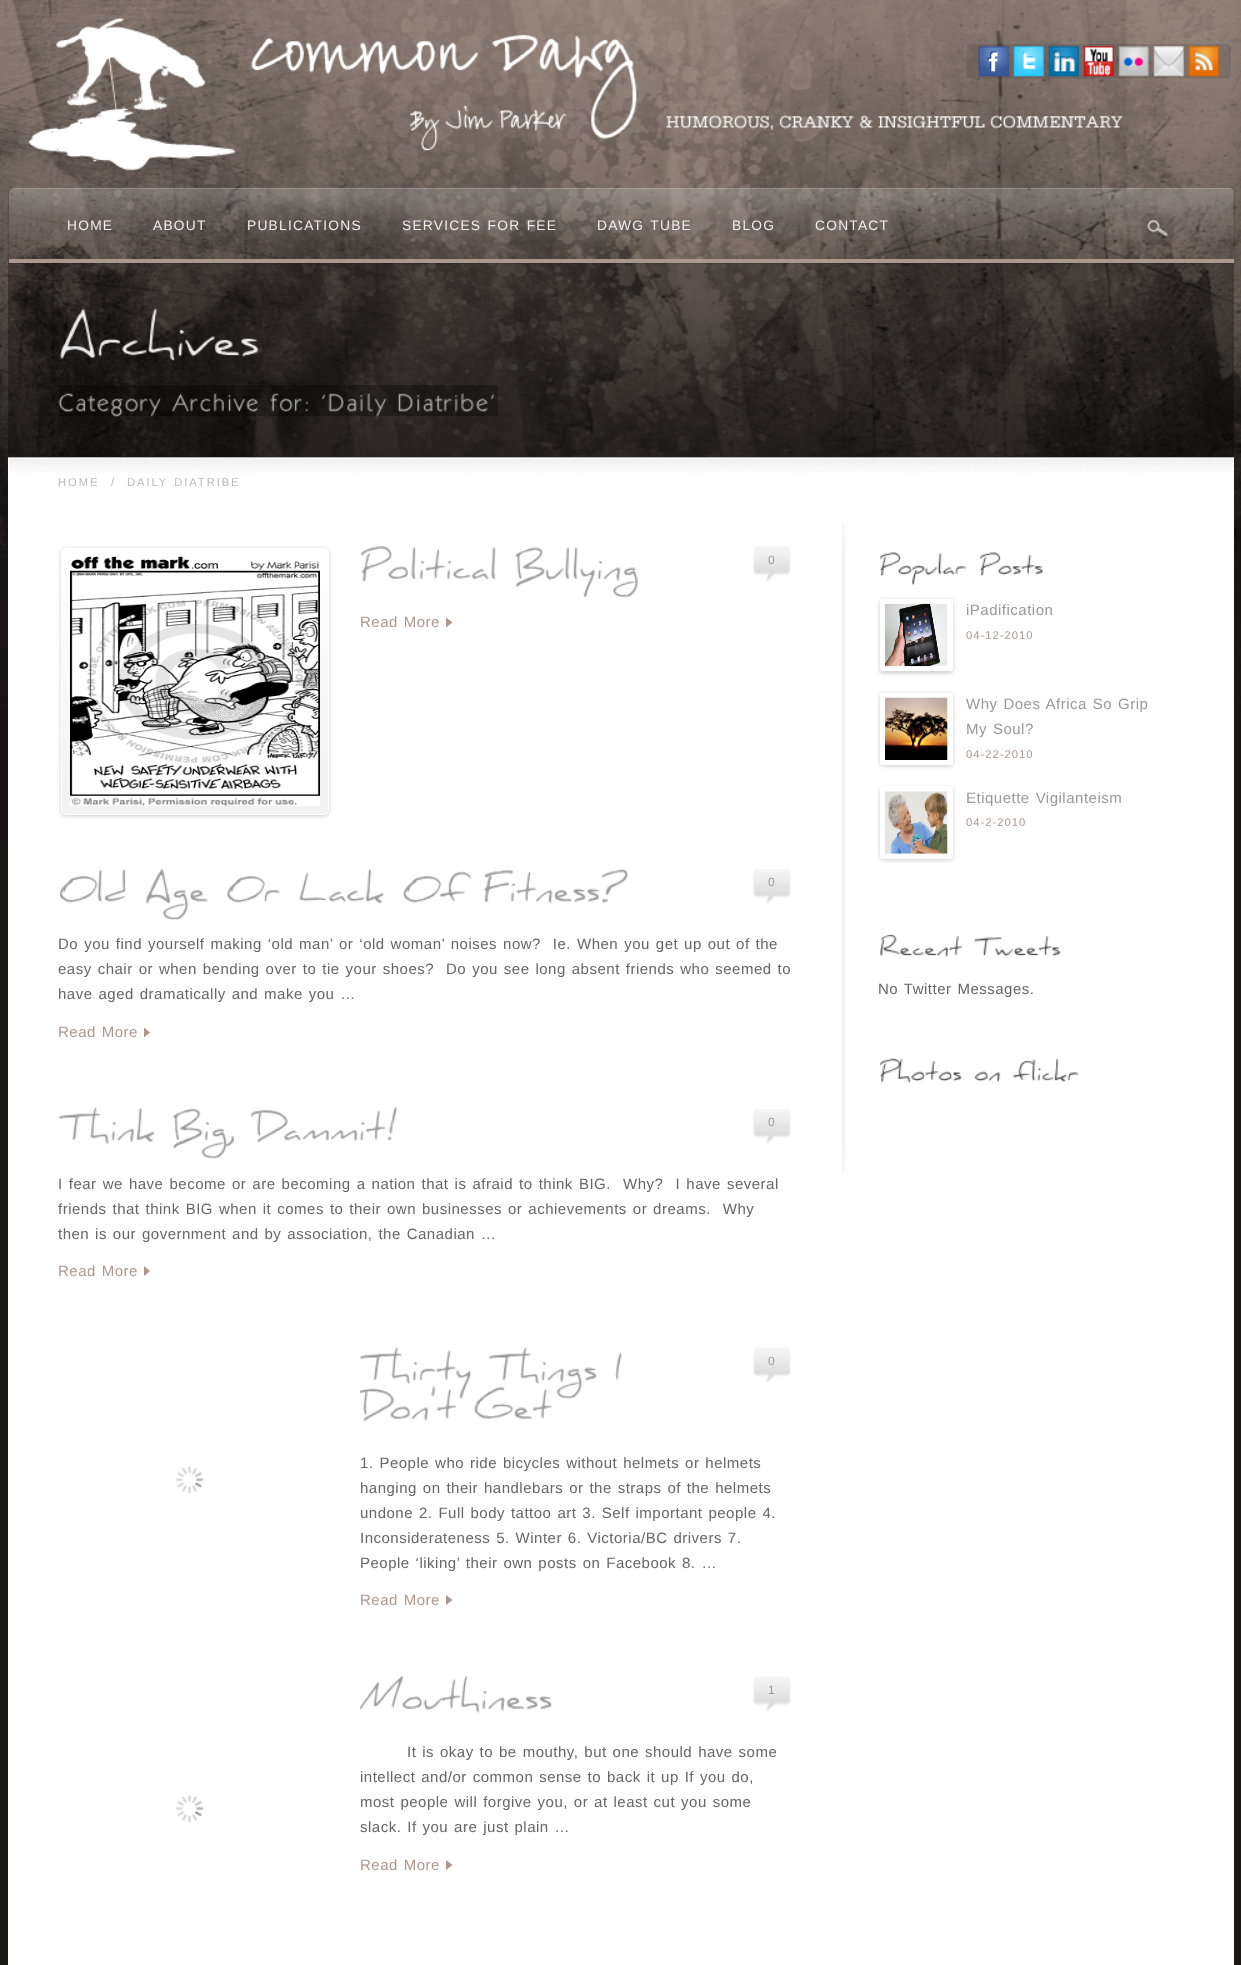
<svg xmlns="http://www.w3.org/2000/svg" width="1241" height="1965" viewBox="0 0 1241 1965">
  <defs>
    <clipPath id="clip1"><path d="M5 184H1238V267H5ZM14 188H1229C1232 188 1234 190 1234 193V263H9V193C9 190 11 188 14 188Z" clip-rule="evenodd"/></clipPath>
    <clipPath id="clip2"><rect x="61" y="548" width="268" height="267" rx="5"/></clipPath>
    <linearGradient id="g1" gradientUnits="userSpaceOnUse" x1="63" y1="814" x2="63" y2="549"><stop offset="0" stop-color="rgb(242,242,242)"/><stop offset="1" stop-color="rgb(255,255,255)"/></linearGradient>
  </defs>
  <rect width="100%" height="100%" fill="rgb(25,24,21)"/>
  <rect x="0" y="0" width="1241" height="843" fill="rgb(171,153,143)"/>
  <image x="0" y="0" width="1241" height="843" href="pic1.png"/>
  <image x="28" y="17" width="1095" height="154" href="pic2.png"/>
  <image x="966" y="44" width="265" height="35" href="pic3.png"/>
  <image x="978" y="46" width="31" height="31" href="pic4.png"/>
  <image x="1013" y="46" width="31" height="31" href="pic5.png"/>
  <image x="1048" y="46" width="31" height="31" href="pic6.png"/>
  <image x="1083" y="46" width="31" height="31" href="pic7.png"/>
  <image x="1118" y="46" width="31" height="31" href="pic8.png"/>
  <image x="1153" y="46" width="31" height="31" href="pic9.png"/>
  <image x="1188" y="46" width="31" height="31" href="pic10.png"/>
  <rect x="8" y="457" width="1226" height="1508" fill="rgb(255,255,255)"/>
  <rect x="8" y="262" width="1226" height="196" fill="rgba(0,0,0,0.3)"/>
  <g clip-path="url(#clip1)">
    <rect x="9" y="188" width="1225" height="75" rx="5" fill="rgba(0,0,0,0.3)" filter="blur(1px)"/>
  </g>
  <image x="9" y="187" width="1225" height="53" href="pic11.png"/>
  <rect x="9" y="259" width="1225" height="4" fill="rgb(171,153,143)"/>
  <g font-family="Liberation Sans" font-size="13.75" letter-spacing="1.25" fill="rgb(238,238,238)">
    <text x="67" y="230">HOME</text>
    <text x="153" y="230">ABOUT</text>
    <text x="247" y="230">PUBLICATIONS</text>
    <text x="402" y="230" word-spacing="1.25">SERVICES FOR FEE</text>
    <text x="597" y="230" word-spacing="1.25">DAWG TUBE</text>
    <text x="732" y="230">BLOG</text>
    <text x="815" y="230">CONTACT</text>
  </g>
  <image x="1141" y="212" width="33" height="34" href="pic12.png"/>
  <image x="60" y="308" width="199" height="53" href="pic13.png"/>
  <rect x="59" y="385" width="439" height="31" fill="rgba(0,0,0,0.3)"/>
  <image x="58" y="393" width="104" height="24" href="pic14.png"/>
  <image x="171" y="392" width="87" height="20" href="pic15.png"/>
  <image x="270" y="393" width="39" height="19" href="pic16.png"/>
  <image x="321" y="392" width="66" height="25" href="pic17.png"/>
  <image x="398" y="392" width="96" height="20" href="pic18.png"/>
  <image x="9" y="458" width="1225" height="15" href="pic19.png"/>
  <g font-family="Liberation Sans" font-size="11.25" letter-spacing="1.9" fill="rgb(187,187,187)">
    <text x="58" y="486">HOME</text>
    <text x="111" y="486">/</text>
    <text x="127" y="486" word-spacing="1.25">DAILY DIATRIBE</text>
  </g>
  <rect x="61" y="549" width="268" height="267" rx="5" fill="rgba(0,0,0,0.2)" filter="blur(2px)"/>
  <g clip-path="url(#clip2)">
    <rect x="61" y="549" width="268" height="265" fill="url(#g1)"/>
  </g>
  <rect x="61.5" y="548.5" width="267" height="266" rx="4.5" fill="none" stroke="rgb(255,255,255)"/>
  <image x="70" y="556" width="250" height="250" href="pic20.png"/>
  <image x="361" y="546" width="135" height="36" href="pic21.png"/>
  <image x="515" y="547" width="123" height="51" href="pic22.png"/>
  <image x="753" y="546" width="38" height="36" href="pic23.png"/>
  <text x="768" y="564" font-family="Liberation Sans" font-size="12" letter-spacing="0.5" fill="rgb(153,153,153)">0</text>
  <text x="360" y="627" word-spacing="1.25" font-family="Liberation Sans" font-size="15" letter-spacing="0.5" fill="rgb(171,153,143)">Read More</text>
  <path d="M446 627.5V617.5L452.5 622.5Z" fill="rgb(171,153,143)"/>
  <image x="59" y="868" width="67" height="35" href="pic24.png"/>
  <image x="146" y="868" width="62" height="52" href="pic25.png"/>
  <image x="227" y="876" width="53" height="27" href="pic26.png"/>
  <image x="299" y="868" width="85" height="36" href="pic27.png"/>
  <image x="403" y="871" width="69" height="32" href="pic28.png"/>
  <image x="483" y="868" width="145" height="36" href="pic29.png"/>
  <image x="753" y="869" width="38" height="35" href="pic30.png"/>
  <text x="768" y="886" font-family="Liberation Sans" font-size="12" letter-spacing="0.5" fill="rgb(153,153,153)">0</text>
  <g font-family="Liberation Sans" font-size="15" letter-spacing="0.5" fill="rgb(102,102,102)">
    <text xml:space="preserve"><tspan x="58" y="949" word-spacing="1.3">Do you find yourself making ‘old man’ or ‘old woman’ noises now?  Ie. When you get up out of the</tspan><tspan x="58" y="974" word-spacing="1.3">easy chair or when bending over to tie your shoes?  Do you see long absent friends who seemed to</tspan><tspan x="58" y="999" word-spacing="1.25">have aged dramatically and make you …</tspan></text>
  </g>
  <text x="58" y="1037" word-spacing="1.25" font-family="Liberation Sans" font-size="15" letter-spacing="0.5" fill="rgb(171,153,143)">Read More</text>
  <path d="M144 1037.5V1027.5L150 1032.5Z" fill="rgb(171,153,143)"/>
  <image x="58" y="1107" width="97" height="37" href="pic31.png"/>
  <image x="172" y="1108" width="63" height="51" href="pic32.png"/>
  <image x="250" y="1107" width="148" height="36" href="pic33.png"/>
  <image x="753" y="1109" width="38" height="35" href="pic30.png"/>
  <text x="768" y="1126" font-family="Liberation Sans" font-size="12" letter-spacing="0.5" fill="rgb(153,153,153)">0</text>
  <g font-family="Liberation Sans" font-size="15" letter-spacing="0.5" fill="rgb(102,102,102)">
    <text xml:space="preserve"><tspan x="58" y="1189" word-spacing="1.4">I fear we have become or are becoming a nation that is afraid to think BIG.  Why?  I have several</tspan><tspan x="58" y="1214" word-spacing="1.3">friends that think BIG when it comes to their own businesses or achievements or dreams.  Why</tspan><tspan x="58" y="1239" word-spacing="1.25">then is our government and by association, the Canadian …</tspan></text>
  </g>
  <text x="58" y="1276" word-spacing="1.25" font-family="Liberation Sans" font-size="15" letter-spacing="0.5" fill="rgb(171,153,143)">Read More</text>
  <path d="M144 1276V1266L150 1271Z" fill="rgb(171,153,143)"/>
  <image x="175" y="1466" width="29" height="28" href="pic34.png"/>
  <image x="360" y="1347" width="112" height="52" href="pic35.png"/>
  <image x="488" y="1347" width="109" height="52" href="pic36.png"/>
  <image x="615" y="1352" width="7" height="28" href="pic37.png"/>
  <image x="360" y="1386" width="97" height="36" href="pic38.png"/>
  <image x="473" y="1387" width="80" height="32" href="pic39.png"/>
  <image x="753" y="1347" width="38" height="36" href="pic40.png"/>
  <text x="768" y="1365" font-family="Liberation Sans" font-size="12" letter-spacing="0.5" fill="rgb(153,153,153)">0</text>
  <g font-family="Liberation Sans" font-size="15" letter-spacing="0.5" fill="rgb(102,102,102)">
    <text>
      <tspan x="360" y="1468" word-spacing="1.25">1. People who ride bicycles without helmets or helmets</tspan>
      <tspan x="360" y="1493" word-spacing="1.25">hanging on their handlebars or the straps of the helmets</tspan>
      <tspan x="360" y="1518" word-spacing="1.25">undone 2. Full body tattoo art 3. Self important people 4.</tspan>
      <tspan x="360" y="1543" word-spacing="1.25">Inconsiderateness 5. Winter 6. Victoria/BC drivers 7.</tspan>
      <tspan x="360" y="1568" word-spacing="1.25">People ‘liking’ their own posts on Facebook 8. …</tspan>
    </text>
  </g>
  <text x="360" y="1605" word-spacing="1.25" font-family="Liberation Sans" font-size="15" letter-spacing="0.5" fill="rgb(171,153,143)">Read More</text>
  <path d="M446 1605V1595L452.5 1600Z" fill="rgb(171,153,143)"/>
  <image x="175" y="1795" width="29" height="27" href="pic41.png"/>
  <image x="360" y="1676" width="192" height="37" href="pic42.png"/>
  <image x="753" y="1676" width="38" height="36" href="pic23.png"/>
  <text x="768" y="1694" font-family="Liberation Sans" font-size="12" letter-spacing="0.5" fill="rgb(153,153,153)">1</text>
  <g font-family="Liberation Sans" font-size="15" letter-spacing="0.5" fill="rgb(102,102,102)">
    <text x="407" y="1757" word-spacing="1.25">It is okay to be mouthy, but one should have some</text>
    <text>
      <tspan x="360" y="1782" word-spacing="1.25">intellect and/or common sense to back it up If you do,</tspan>
      <tspan x="360" y="1807" word-spacing="1.25">most people will forgive you, or at least cut you some</tspan>
      <tspan x="360" y="1832" word-spacing="1.25">slack. If you are just plain …</tspan>
    </text>
  </g>
  <text x="360" y="1870" word-spacing="1.25" font-family="Liberation Sans" font-size="15" letter-spacing="0.5" fill="rgb(171,153,143)">Read More</text>
  <path d="M446 1870V1860L452.5 1865Z" fill="rgb(171,153,143)"/>
  <image x="842" y="522" width="5" height="23" href="pic43.png"/>
  <image x="842" y="545" width="4" height="606" href="pic44.png"/>
  <image x="879" y="552" width="88" height="34" href="pic45.png"/>
  <image x="979" y="552" width="64" height="25" href="pic46.png"/>
  <rect x="880" y="600" width="73" height="73" rx="2.5" fill="rgba(0,0,0,0.2)" filter="blur(2px)"/>
  <rect x="880" y="599" width="73" height="72" rx="2.5" fill="rgb(255,255,255)"/>
  <image x="885" y="603" width="63" height="64" href="pic47.png"/>
  <text x="966" y="615" font-family="Liberation Sans" font-size="15" letter-spacing="0.5" fill="rgb(153,153,153)">iPadification</text>
  <text x="966" y="639" font-family="Liberation Sans" font-size="11.25" letter-spacing="1" fill="rgb(171,153,143)">04-12-2010</text>
  <rect x="880" y="694" width="73" height="72" rx="2.5" fill="rgba(0,0,0,0.2)" filter="blur(2px)"/>
  <rect x="880" y="693" width="73" height="72" rx="2.5" fill="rgb(255,255,255)"/>
  <image x="885" y="697" width="63" height="63" href="pic48.png"/>
  <g font-family="Liberation Sans" font-size="15" letter-spacing="0.5" fill="rgb(153,153,153)">
    <text>
      <tspan x="966" y="709" word-spacing="1.25">Why Does Africa So Grip</tspan>
      <tspan x="966" y="734" word-spacing="1.25">My Soul?</tspan>
    </text>
  </g>
  <text x="966" y="758" font-family="Liberation Sans" font-size="11.25" letter-spacing="1" fill="rgb(171,153,143)">04-22-2010</text>
  <rect x="880" y="788" width="73" height="72" rx="2.5" fill="rgba(0,0,0,0.2)" filter="blur(2px)"/>
  <rect x="880" y="786" width="73" height="73" rx="2.5" fill="rgb(255,255,255)"/>
  <image x="885" y="791" width="63" height="63" href="pic49.png"/>
  <text x="966" y="803" word-spacing="1.25" font-family="Liberation Sans" font-size="15" letter-spacing="0.5" fill="rgb(153,153,153)">Etiquette Vigilanteism</text>
  <text x="966" y="826" font-family="Liberation Sans" font-size="11.25" letter-spacing="1" fill="rgb(171,153,143)">04-2-2010</text>
  <image x="879" y="934" width="84" height="23" href="pic50.png"/>
  <image x="973" y="935" width="88" height="22" href="pic51.png"/>
  <text x="878" y="994" word-spacing="1.25" font-family="Liberation Sans" font-size="15" letter-spacing="0.5" fill="rgb(102,102,102)">No Twitter Messages.</text>
  <image x="879" y="1058" width="83" height="25" href="pic52.png"/>
  <image x="974" y="1071" width="27" height="11" href="pic53.png"/>
  <image x="1012" y="1058" width="67" height="24" href="pic54.png"/>
  <image x="842" y="1151" width="4" height="23" href="pic55.png"/>
</svg>
